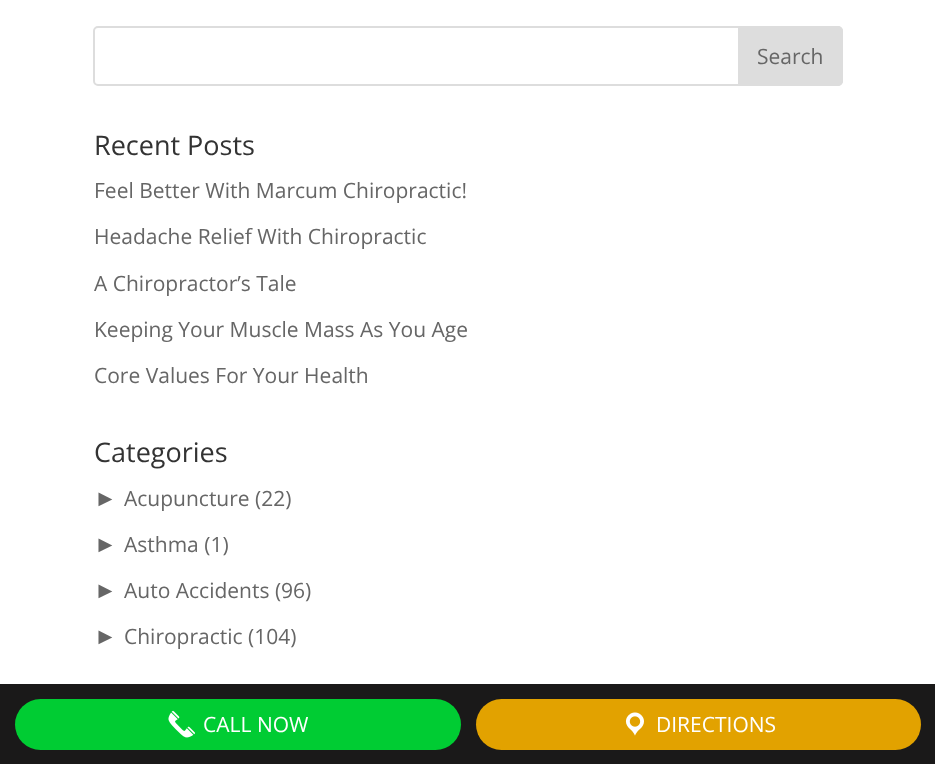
<svg xmlns="http://www.w3.org/2000/svg" width="935" height="764" viewBox="0 0 935 764">
  <rect width="100%" height="100%" fill="rgb(255,255,255)"/>
  <rect x="94" y="27" width="748" height="58" rx="4" fill="none" stroke="rgb(221,221,221)" stroke-width="2"/>
  <path d="M739 27H838C840 27 842 29 842 31V81C842 83 840 85 838 85H739Z" fill="rgb(221,221,221)" stroke="rgb(221,221,221)" stroke-width="2"/>
  <text x="757" y="64" font-family="Open Sans" font-size="21" fill="rgb(102,102,102)">Search</text>
  <text x="94" y="155" font-family="Open Sans" font-size="27" fill="rgb(51,51,51)">Recent Posts</text>
  <g font-family="Open Sans" font-size="21" fill="rgb(102,102,102)">
    <text x="94" y="198">Feel Better With Marcum Chiropractic!</text>
    <text x="94" y="244">Headache Relief With Chiropractic</text>
    <text x="94" y="291">A Chiropractor’s Tale</text>
    <text x="94" y="337">Keeping Your Muscle Mass As You Age</text>
    <text x="94" y="383">Core Values For Your Health</text>
  </g>
  <text x="94" y="462" font-family="Open Sans" font-size="27" fill="rgb(51,51,51)">Categories</text>
  <text x="94" y="506" font-family="Liberation Sans" font-size="23" fill="rgb(102,102,102)">►</text>
  <text x="124" y="506" font-family="Open Sans" font-size="21" fill="rgb(102,102,102)">Acupuncture (22)</text>
  <text x="94" y="552" font-family="Liberation Sans" font-size="23" fill="rgb(102,102,102)">►</text>
  <text x="124" y="552" font-family="Open Sans" font-size="21" fill="rgb(102,102,102)">Asthma (1)</text>
  <text x="94" y="598" font-family="Liberation Sans" font-size="23" fill="rgb(102,102,102)">►</text>
  <text x="124" y="598" font-family="Open Sans" font-size="21" fill="rgb(102,102,102)">Auto Accidents (96)</text>
  <text x="94" y="644" font-family="Liberation Sans" font-size="23" fill="rgb(102,102,102)">►</text>
  <text x="124" y="644" font-family="Open Sans" font-size="21" fill="rgb(102,102,102)">Chiropractic (104)</text>
  <rect x="0" y="684" width="935" height="80" fill="rgb(26,25,25)"/>
  <rect x="15" y="699" width="446" height="51" rx="25.5" fill="rgb(0,204,51)"/>
  <image x="168" y="710" width="27" height="28" href="pic1.png"/>
  <text x="203" y="732" font-family="Open Sans" font-size="21" fill="rgb(255,255,255)">CALL NOW</text>
  <rect x="476" y="699" width="445" height="51" rx="25.5" fill="rgb(226,162,0)"/>
  <image x="625" y="712" width="19" height="24" href="pic2.png"/>
  <text x="656" y="732" font-family="Open Sans" font-size="21" fill="rgb(255,255,255)">DIRECTIONS</text>
</svg>
